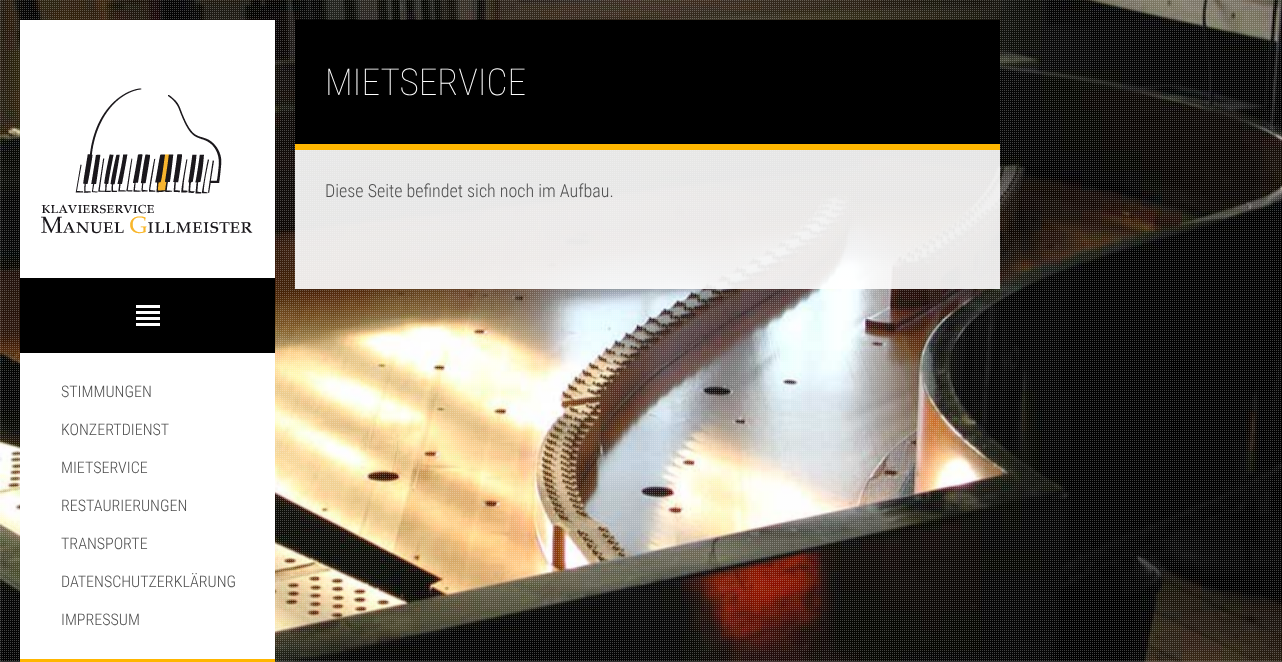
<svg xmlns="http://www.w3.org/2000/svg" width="1282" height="662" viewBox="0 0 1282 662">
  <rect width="100%" height="100%" fill="rgb(255,255,255)"/>
  <image x="0" y="0" width="1282" height="662" href="pic1.png"/>
  <image x="0" y="0" width="1281" height="661" href="pic2.png"/>
  <rect x="295" y="150" width="705" height="139" fill="rgba(255,255,255,0.9)"/>
  <rect x="295" y="20" width="705" height="124" fill="rgb(0,0,0)"/>
  <rect x="295" y="144" width="705" height="6" fill="rgb(255,182,0)"/>
  <text x="325" y="95" font-family="Roboto Condensed" font-size="37" font-weight="100" fill="rgb(255,255,255)">MIETSERVICE</text>
  <text x="325" y="197" font-family="Roboto Condensed" font-size="18" font-weight="300" fill="rgb(77,77,77)">Diese Seite befindet sich noch im Aufbau.</text>
  <rect x="20" y="20" width="255" height="639" fill="rgb(255,255,255)"/>
  <rect x="20" y="659" width="255" height="3" fill="rgb(255,182,0)"/>
  <image x="41" y="88" width="212" height="146" href="pic3.png"/>
  <rect x="20" y="278" width="255" height="75" fill="rgb(0,0,0)"/>
  <image x="136" y="305" width="24" height="21" href="pic4.png"/>
  <g font-family="Roboto Condensed" font-size="16" font-weight="300" fill="rgb(77,77,77)">
    <text x="61" y="397">STIMMUNGEN</text>
    <text x="61" y="435">KONZERTDIENST</text>
    <text x="61" y="473">MIETSERVICE</text>
    <text x="61" y="511">RESTAURIERUNGEN</text>
    <text x="61" y="549">TRANSPORTE</text>
    <text x="61" y="587">DATENSCHUTZERKLÄRUNG</text>
    <text x="61" y="625">IMPRESSUM</text>
  </g>
</svg>
